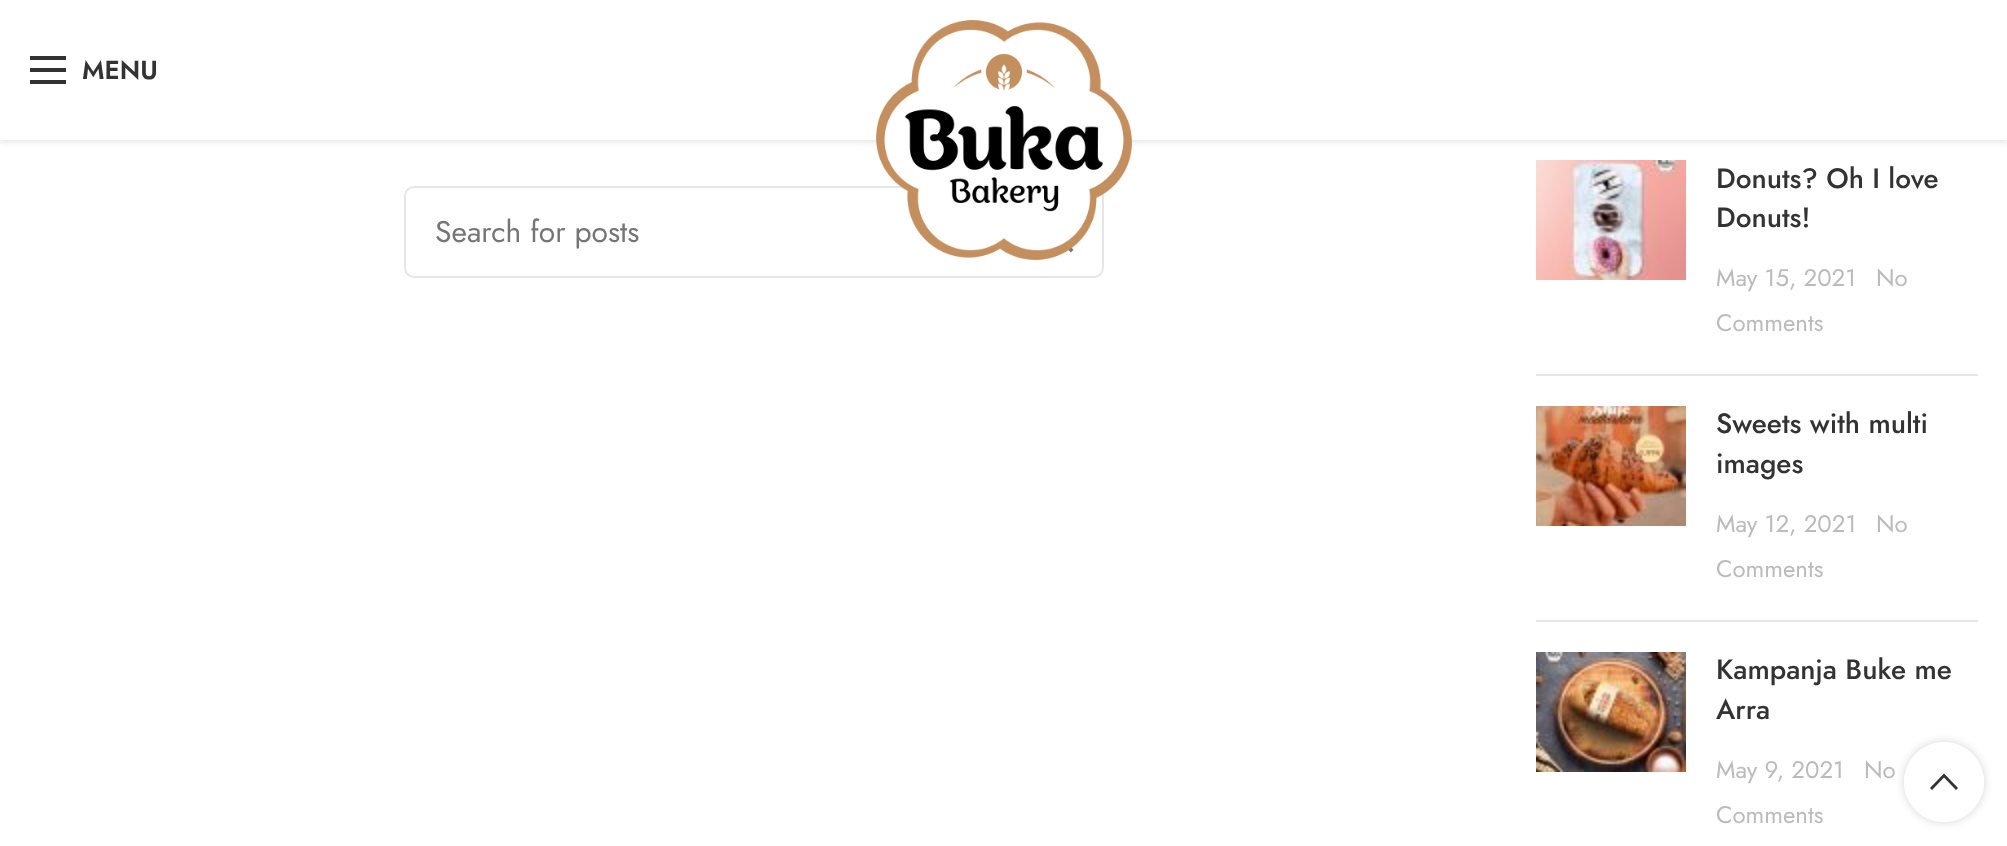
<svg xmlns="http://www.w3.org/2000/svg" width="2007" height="846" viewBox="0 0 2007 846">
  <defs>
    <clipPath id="clip1"><path d="M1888 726H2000V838H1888ZM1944 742C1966 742 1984 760 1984 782C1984 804 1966 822 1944 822C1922 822 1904 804 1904 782C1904 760 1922 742 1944 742Z" clip-rule="evenodd"/></clipPath>
  </defs>
  <rect width="100%" height="100%" fill="rgb(255,255,255)"/>
  <rect x="0" y="2" width="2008" height="140" fill="rgba(0,0,0,0.1)" filter="blur(3px)"/>
  <rect x="0" y="0" width="2007" height="140" fill="rgb(255,255,255)"/>
  <rect x="30" y="68" width="36" height="4" fill="rgb(51,51,51)"/>
  <rect x="30" y="56" width="36" height="4" fill="rgb(51,51,51)"/>
  <rect x="30" y="80" width="36" height="4" fill="rgb(51,51,51)"/>
  <text x="82" y="79" font-family="Jost" font-size="26" font-weight="600" fill="rgb(51,51,51)">MENU</text>
  <rect x="405" y="187" width="698" height="90" rx="9" fill="none" stroke="rgb(230,230,230)" stroke-width="2"/>
  <image x="1068" y="247" width="6" height="6" href="pic2.png"/>
  <image x="876" y="20" width="256" height="240" href="pic1.png"/>
  <text x="435" y="242" font-family="Jost" font-size="30" fill="rgb(117,117,117)">Search for posts</text>
  <rect x="1536" y="374" width="442" height="2" fill="rgb(230,230,230)"/>
  <image x="1536" y="160" width="150" height="120" href="pic3.png"/>
  <g font-family="Jost" font-size="28" font-weight="500" fill="rgb(51,51,51)">
    <text>
      <tspan x="1716" y="188">Donuts? Oh I love</tspan>
      <tspan x="1716" y="227">Donuts!</tspan>
    </text>
  </g>
  <g font-family="Jost" font-size="24" fill="rgb(187,187,187)">
    <text x="1716" y="286">May 15, 2021</text>
    <text x="1876" y="286">No</text>
    <text x="1716" y="331">Comments</text>
  </g>
  <rect x="1536" y="620" width="442" height="2" fill="rgb(230,230,230)"/>
  <image x="1536" y="406" width="150" height="120" href="pic4.png"/>
  <g font-family="Jost" font-size="28" font-weight="500" fill="rgb(51,51,51)">
    <text>
      <tspan x="1716" y="433">Sweets with multi</tspan>
      <tspan x="1716" y="473">images</tspan>
    </text>
  </g>
  <g font-family="Jost" font-size="24" fill="rgb(187,187,187)">
    <text x="1716" y="532">May 12, 2021</text>
    <text x="1876" y="532">No</text>
    <text x="1716" y="577">Comments</text>
  </g>
  <image x="1536" y="652" width="150" height="120" href="pic5.png"/>
  <g font-family="Jost" font-size="28" font-weight="500" fill="rgb(51,51,51)">
    <text>
      <tspan x="1716" y="679">Kampanja Buke me</tspan>
      <tspan x="1716" y="719">Arra</tspan>
    </text>
  </g>
  <g font-family="Jost" font-size="24" fill="rgb(187,187,187)">
    <text x="1716" y="778">May 9, 2021</text>
    <text x="1864" y="778">No</text>
    <text x="1716" y="823">Comments</text>
  </g>
  <g clip-path="url(#clip1)">
    <rect x="1904" y="742" width="80" height="80" rx="40" fill="rgba(0,0,0,0.17)" filter="blur(5px)"/>
  </g>
  <circle cx="1944" cy="782" r="40" fill="rgba(255,255,255,0.9)"/>
  <path d="M1944 773.5L1958 788L1956 790L1944 777.5L1932 790L1930 788Z" fill="rgb(51,51,51)"/>
</svg>
